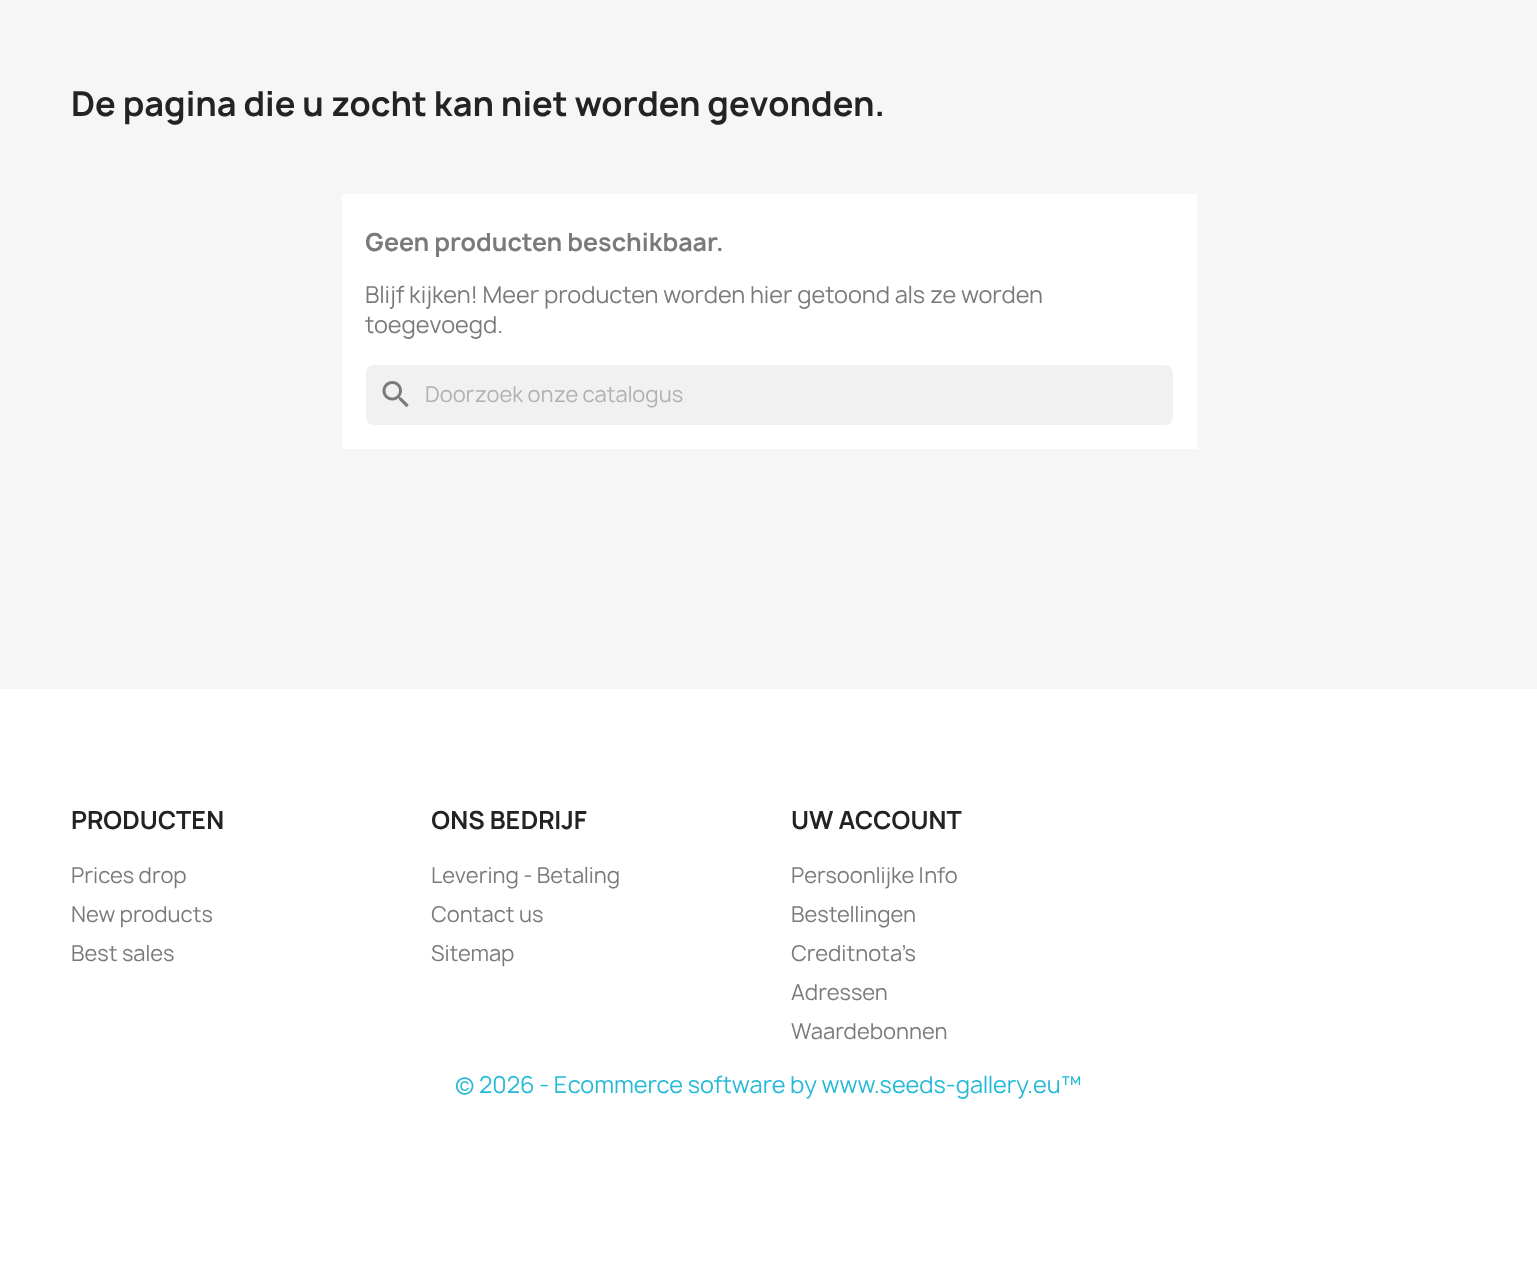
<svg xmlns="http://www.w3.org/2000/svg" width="1537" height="1261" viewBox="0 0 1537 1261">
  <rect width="100%" height="100%" fill="rgb(255,255,255)"/>
  <rect x="0" y="0" width="1537" height="689" fill="rgb(246,246,246)"/>
  <text x="71" y="116" font-family="Manrope" font-size="33" font-weight="bold" fill="rgb(35,35,35)">De pagina die u zocht kan niet worden gevonden.</text>
  <rect x="342" y="194" width="855" height="255" fill="rgb(255,255,255)"/>
  <text x="365" y="251" font-family="Manrope" font-size="24" font-weight="bold" fill="rgb(122,122,122)">Geen producten beschikbaar.</text>
  <g font-family="Manrope" font-size="22.5" fill="rgb(122,122,122)">
    <text>
      <tspan x="365" y="303">Blijf kijken! Meer producten worden hier getoond als ze worden</tspan>
      <tspan x="365" y="333">toegevoegd.</tspan>
    </text>
  </g>
  <rect x="366" y="365" width="807" height="60" rx="8" fill="rgb(241,241,241)"/>
  <image x="382" y="381" width="27" height="27" href="pic1.png"/>
  <text x="425" y="402" font-family="Manrope" font-size="21" fill="rgb(177,177,177)">Doorzoek onze catalogus</text>
  <text x="71" y="829" font-family="Manrope" font-size="24" font-weight="bold" fill="rgb(35,35,35)">PRODUCTEN</text>
  <g font-family="Manrope" font-size="21" fill="rgb(122,122,122)">
    <text>
      <tspan x="71" y="883">Prices drop</tspan>
      <tspan x="71" y="922">New products</tspan>
      <tspan x="71" y="961">Best sales</tspan>
    </text>
  </g>
  <text x="431" y="829" font-family="Manrope" font-size="24" font-weight="bold" fill="rgb(35,35,35)">ONS BEDRIJF</text>
  <g font-family="Manrope" font-size="21" fill="rgb(122,122,122)">
    <text>
      <tspan x="431" y="883">Levering - Betaling</tspan>
      <tspan x="431" y="922">Contact us</tspan>
      <tspan x="431" y="961">Sitemap</tspan>
    </text>
  </g>
  <text x="791" y="829" font-family="Manrope" font-size="24" font-weight="bold" fill="rgb(35,35,35)">UW ACCOUNT</text>
  <g font-family="Manrope" font-size="21" fill="rgb(122,122,122)">
    <text>
      <tspan x="791" y="883">Persoonlijke Info</tspan>
      <tspan x="791" y="922">Bestellingen</tspan>
      <tspan x="791" y="961">Creditnota's</tspan>
      <tspan x="791" y="1000">Adressen</tspan>
      <tspan x="791" y="1039">Waardebonnen</tspan>
    </text>
  </g>
  <text x="455" y="1093" font-family="Manrope" font-size="22.5" fill="rgb(36,185,215)">© 2026 - Ecommerce software by www.seeds-gallery.eu™</text>
</svg>
